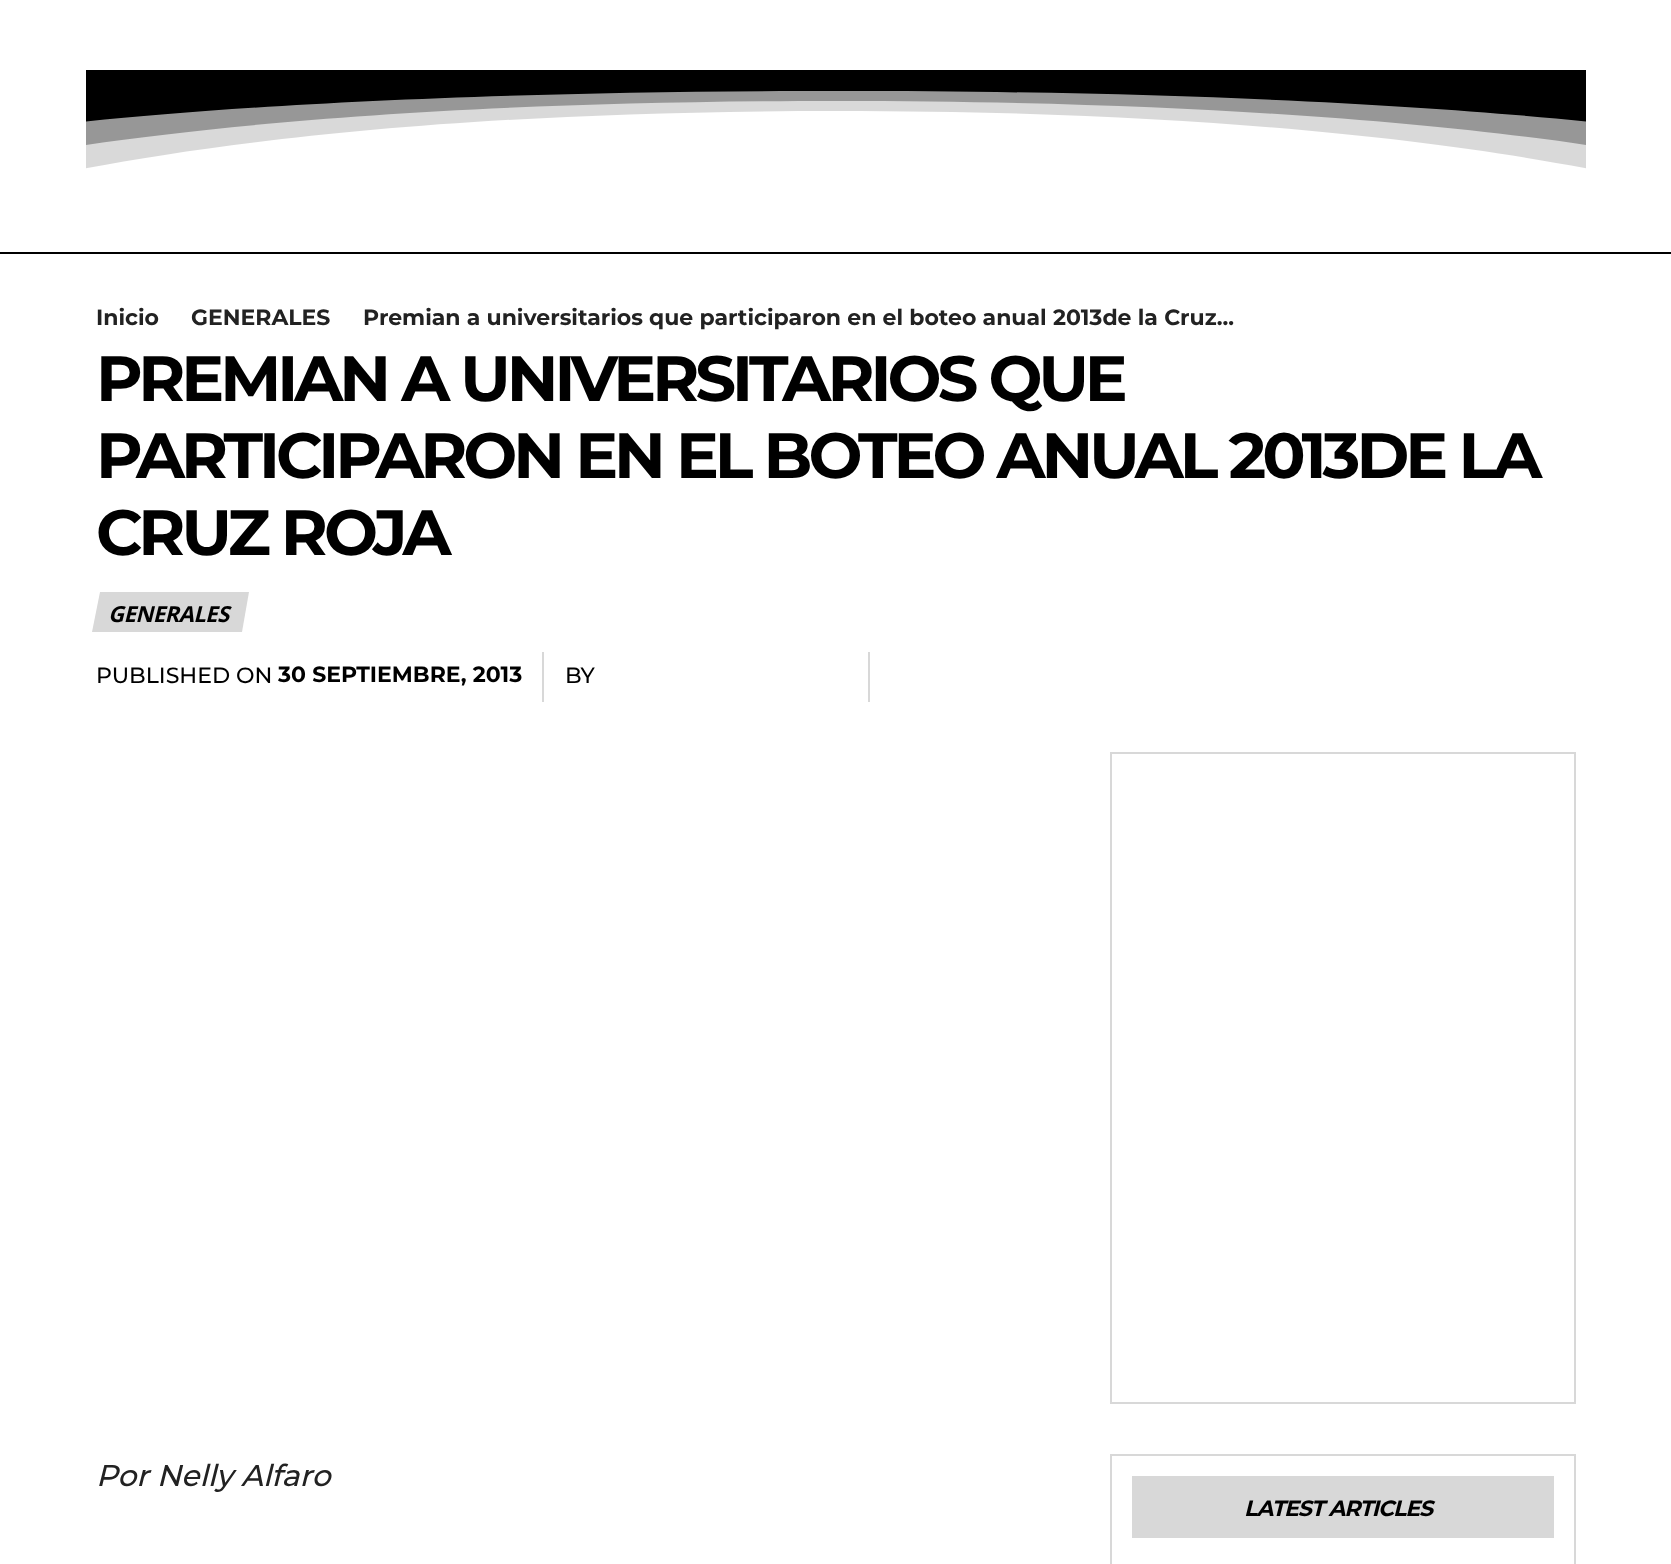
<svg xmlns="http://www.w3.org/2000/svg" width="1671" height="1564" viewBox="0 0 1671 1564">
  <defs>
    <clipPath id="clip1"><rect x="86" y="70" width="1500" height="182"/></clipPath>
  </defs>
  <rect width="100%" height="100%" fill="rgb(255,255,255)"/>
  <g clip-path="url(#clip1)">
    <path d="M-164-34V159C-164 159 79 91 836 91C1593 91 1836 159 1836 159V-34Z" fill="rgb(0,0,0)"/>
    <path d="M-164-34V199C-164 199 79 101 836 101C1593 101 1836 199 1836 199V-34Z" fill="rgba(0,0,0,0.3)"/>
    <path d="M-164-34V239C-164 239 79 111 836 111C1593 111 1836 239 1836 239V-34Z" fill="rgba(0,0,0,0.15)"/>
  </g>
  <rect x="0" y="252" width="1671" height="2" fill="rgb(0,0,0)"/>
  <g font-family="Montserrat" font-size="22" font-weight="bold" fill="rgb(34,34,34)">
    <text x="96" y="325">Inicio</text>
    <text x="191" y="325">GENERALES</text>
    <text x="363" y="325">Premian a universitarios que participaron en el boteo anual 2013de la Cruz...</text>
  </g>
  <g font-family="Montserrat" font-size="64" font-weight="bold" letter-spacing="-4" fill="rgb(0,0,0)">
    <text>
      <tspan x="96" y="401">PREMIAN A UNIVERSITARIOS QUE</tspan>
      <tspan x="96" y="478">PARTICIPARON EN EL BOTEO ANUAL 2013DE LA</tspan>
      <tspan x="96" y="555">CRUZ ROJA</tspan>
    </text>
  </g>
  <path d="M100 592H249L242 632H92Z" fill="rgb(216,216,216)"/>
  <text x="108" y="622" font-family="Open Sans" font-size="22" font-weight="bold" font-style="italic" letter-spacing="-0.5" fill="rgb(0,0,0)">GENERALES</text>
  <rect x="542" y="652" width="2" height="50" fill="rgb(216,216,216)"/>
  <text x="96" y="683" font-family="Montserrat" font-size="22" font-weight="500" fill="rgb(0,0,0)">PUBLISHED ON</text>
  <text x="278" y="682" font-family="Montserrat" font-size="22" font-weight="bold" fill="rgb(0,0,0)">30 SEPTIEMBRE, 2013</text>
  <rect x="868" y="652" width="2" height="50" fill="rgb(216,216,216)"/>
  <text x="565" y="683" font-family="Montserrat" font-size="22" font-weight="500" fill="rgb(0,0,0)">BY</text>
  <rect x="1111" y="753" width="464" height="650" fill="none" stroke="rgb(216,216,216)" stroke-width="2"/>
  <text x="96" y="1486" font-family="Montserrat" font-size="30" font-weight="500" font-style="italic" fill="rgb(34,34,34)">Por Nelly Alfaro</text>
  <rect x="1111" y="1455" width="464" height="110" fill="none" stroke="rgb(216,216,216)" stroke-width="2"/>
  <rect x="1132" y="1476" width="422" height="62" fill="rgb(216,216,216)"/>
  <text x="1244" y="1516" font-family="Montserrat" font-size="22" font-weight="bold" font-style="italic" letter-spacing="-1" fill="rgb(0,0,0)">LATEST ARTICLES</text>
</svg>
